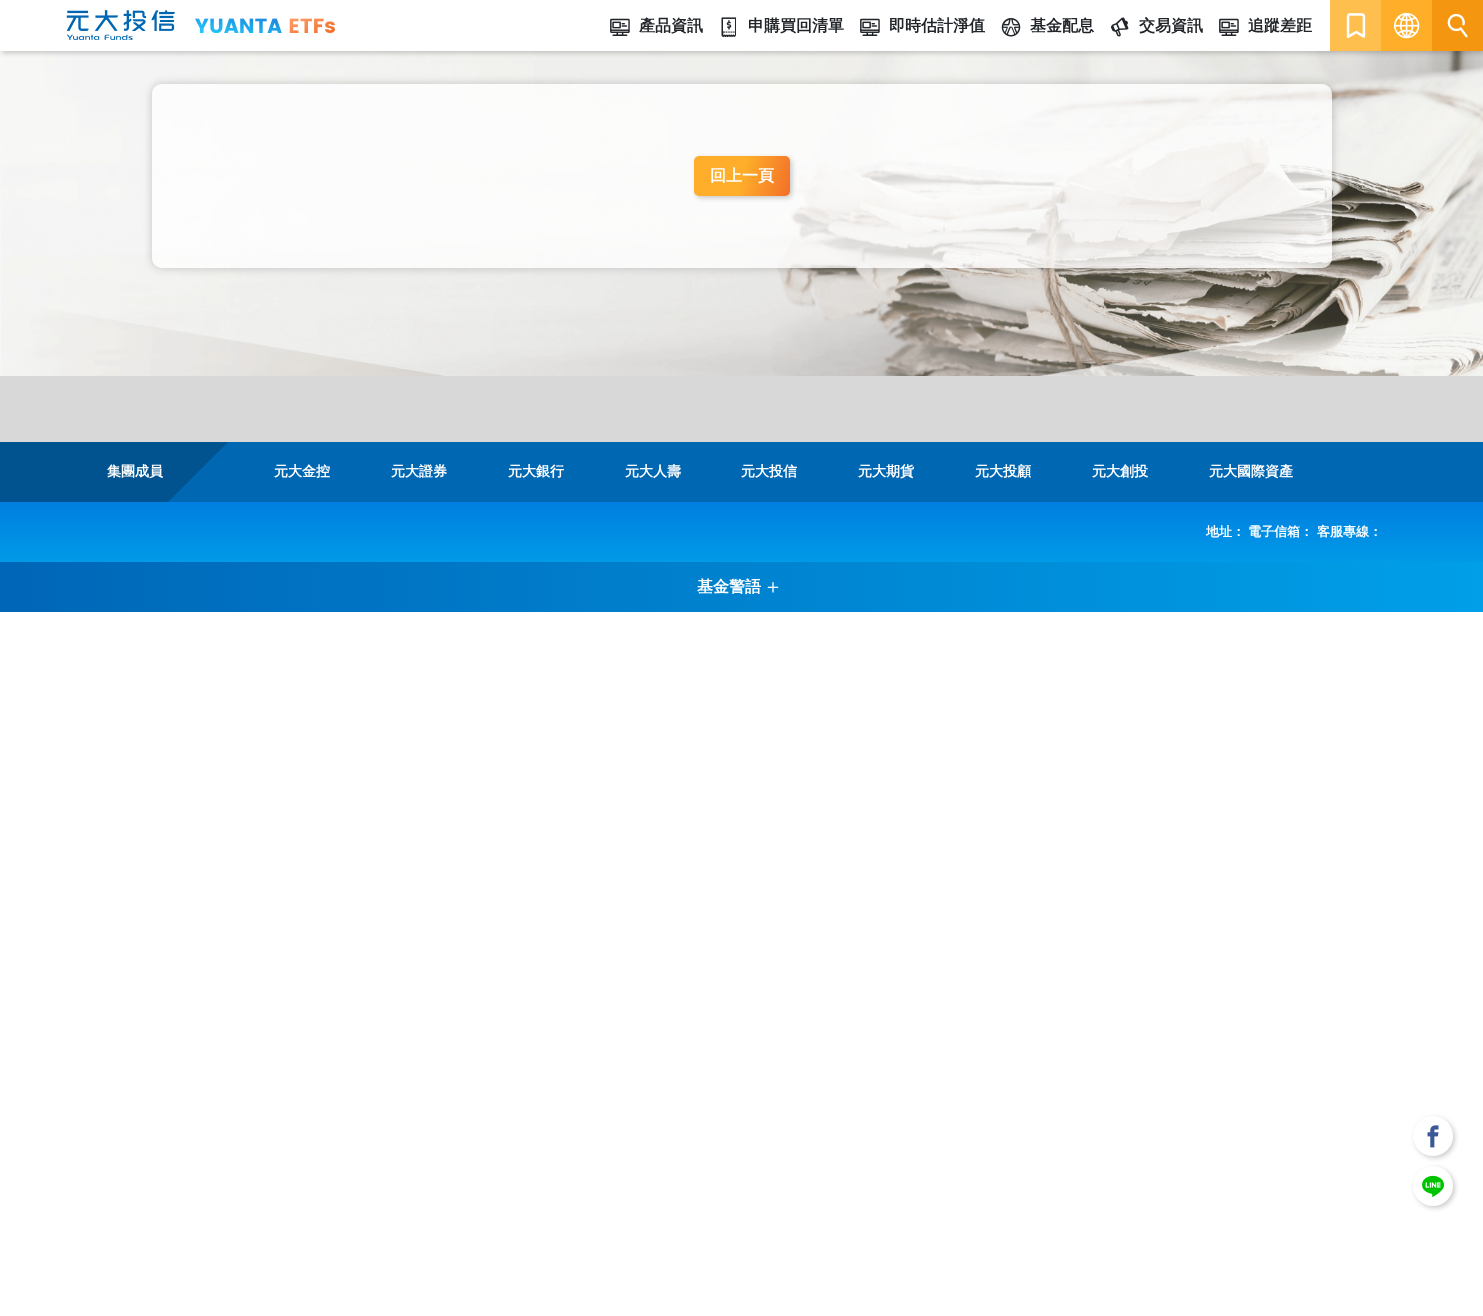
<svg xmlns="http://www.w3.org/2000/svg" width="1483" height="1316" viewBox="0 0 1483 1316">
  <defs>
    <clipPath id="clip1"><path d="M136 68H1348V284H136ZM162 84H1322C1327.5 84 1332 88.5 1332 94V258C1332 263.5 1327.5 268 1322 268H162C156.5 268 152 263.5 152 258V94C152 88.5 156.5 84 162 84Z" clip-rule="evenodd"/></clipPath>
    <linearGradient id="g1" gradientUnits="userSpaceOnUse" x1="792" y1="190" x2="692" y2="162"><stop offset="0" stop-color="rgb(242,111,40)"/><stop offset="0.5" stop-color="rgb(254,174,42)"/><stop offset="1" stop-color="rgb(254,174,42)"/></linearGradient>
    <linearGradient id="g2" gradientUnits="userSpaceOnUse" x1="742" y1="502" x2="742" y2="562"><stop offset="0" stop-color="rgb(0,127,224)"/><stop offset="1" stop-color="rgb(0,154,231)"/></linearGradient>
    <linearGradient id="g3" gradientUnits="userSpaceOnUse" x1="0" y1="587" x2="1483" y2="587"><stop offset="0" stop-color="rgb(0,102,183)"/><stop offset="1" stop-color="rgb(0,159,232)"/></linearGradient>
  </defs>
  <rect width="100%" height="100%" fill="rgb(255,255,255)"/>
  <rect x="0" y="51" width="1" height="325" fill="rgb(247,247,247)"/>
  <image x="1" y="51" width="1482" height="325" href="pic10.png"/>
  <rect x="2" y="2" width="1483" height="51" fill="rgba(0,0,0,0.2)" filter="blur(2.5px)"/>
  <rect x="0" y="0" width="1330" height="51" fill="rgb(255,255,255)"/>
  <image x="66" y="10" width="109" height="30" href="pic1.png"/>
  <image x="195" y="18" width="140" height="15" href="pic2.png"/>
  <image x="610" y="18" width="20" height="18" href="pic3.png"/>
  <text x="639" y="31" font-family="WenQuanYi Zen Hei" font-size="16" font-weight="bold" fill="rgb(33,37,41)">產品資訊</text>
  <image x="721" y="17" width="16" height="21" href="pic4.png"/>
  <text x="748" y="31" font-family="WenQuanYi Zen Hei" font-size="16" font-weight="bold" fill="rgb(33,37,41)">申購買回清單</text>
  <image x="860" y="18" width="20" height="18" href="pic3.png"/>
  <text x="889" y="31" font-family="WenQuanYi Zen Hei" font-size="16" font-weight="bold" fill="rgb(33,37,41)">即時估計淨值</text>
  <image x="1001" y="18" width="20" height="19" href="pic5.png"/>
  <text x="1030" y="31" font-family="WenQuanYi Zen Hei" font-size="16" font-weight="bold" fill="rgb(33,37,41)">基金配息</text>
  <image x="1110" y="17" width="19" height="20" href="pic6.png"/>
  <text x="1139" y="31" font-family="WenQuanYi Zen Hei" font-size="16" font-weight="bold" fill="rgb(33,37,41)">交易資訊</text>
  <image x="1219" y="18" width="20" height="18" href="pic3.png"/>
  <text x="1248" y="31" font-family="WenQuanYi Zen Hei" font-size="16" font-weight="bold" fill="rgb(33,37,41)">追蹤差距</text>
  <rect x="1330" y="0" width="51" height="51" fill="rgb(254,191,78)"/>
  <image x="1346" y="13" width="20" height="26" href="pic7.png"/>
  <rect x="1381" y="0" width="51" height="51" fill="rgb(255,174,41)"/>
  <image x="1393" y="12" width="27" height="27" href="pic8.png"/>
  <rect x="1432" y="0" width="51" height="51" fill="rgb(245,150,17)"/>
  <image x="1447" y="13" width="21" height="25" href="pic9.png"/>
  <g clip-path="url(#clip1)">
    <rect x="152" y="84" width="1180" height="184" rx="10" fill="rgba(0,0,0,0.2)" filter="blur(5px)"/>
  </g>
  <rect x="152" y="84" width="1180" height="184" rx="10" fill="rgba(255,255,255,0.75)"/>
  <rect x="696" y="158" width="96" height="40" rx="5" fill="rgba(0,0,0,0.2)" filter="blur(2.5px)"/>
  <rect x="694" y="156" width="96" height="40" rx="5" fill="url(#g1)"/>
  <text x="710" y="181" font-family="WenQuanYi Zen Hei" font-size="16" font-weight="bold" fill="rgb(255,255,255)">回上一頁</text>
  <rect x="0" y="376" width="1483" height="66" fill="rgb(216,216,216)"/>
  <rect x="0" y="442" width="168" height="60" fill="rgb(1,83,143)"/>
  <text x="107" y="476" font-family="WenQuanYi Zen Hei" font-size="14" font-weight="bold" fill="rgb(255,255,255)">集團成員</text>
  <rect x="168" y="442" width="1146" height="60" fill="rgb(0,103,179)"/>
  <path d="M168 442H228L168 502Z" fill="rgb(1,83,143)"/>
  <g font-family="WenQuanYi Zen Hei" font-size="14" font-weight="bold" fill="rgb(255,255,255)">
    <text x="274" y="476">元大金控</text>
    <text x="391" y="476">元大證券</text>
    <text x="508" y="476">元大銀行</text>
    <text x="625" y="476">元大人壽</text>
    <text x="741" y="476">元大投信</text>
    <text x="858" y="476">元大期貨</text>
    <text x="975" y="476">元大投顧</text>
    <text x="1092" y="476">元大創投</text>
    <text x="1209" y="476">元大國際資產</text>
  </g>
  <rect x="1314" y="442" width="169" height="60" fill="rgb(0,103,179)"/>
  <rect x="0" y="502" width="1483" height="60" fill="url(#g2)"/>
  <g font-family="WenQuanYi Zen Hei" font-size="13" font-weight="bold" fill="rgb(255,255,255)">
    <text x="1206" y="536" word-spacing="-1">地址： 電子信箱：</text>
    <text x="1317" y="536">客服專線：</text>
  </g>
  <rect x="0" y="562" width="1483" height="50" fill="url(#g3)"/>
  <text x="697" y="592" font-family="WenQuanYi Zen Hei" font-size="16" font-weight="bold" fill="rgb(255,255,255)">基金警語</text>
  <image x="767" y="582" width="12" height="11" href="pic11.png"/>
  <rect x="1415" y="1118" width="40" height="40" rx="20" fill="rgba(0,0,0,0.2)" filter="blur(2.5px)"/>
  <circle cx="1433" cy="1136" r="20" fill="rgb(255,255,255)"/>
  <image x="1427" y="1125" width="12" height="23" href="pic12.png"/>
  <rect x="1415" y="1168" width="40" height="40" rx="20" fill="rgba(0,0,0,0.2)" filter="blur(2.5px)"/>
  <circle cx="1433" cy="1186" r="20" fill="rgb(255,255,255)"/>
  <image x="1422" y="1175" width="22" height="22" href="pic13.png"/>
</svg>
